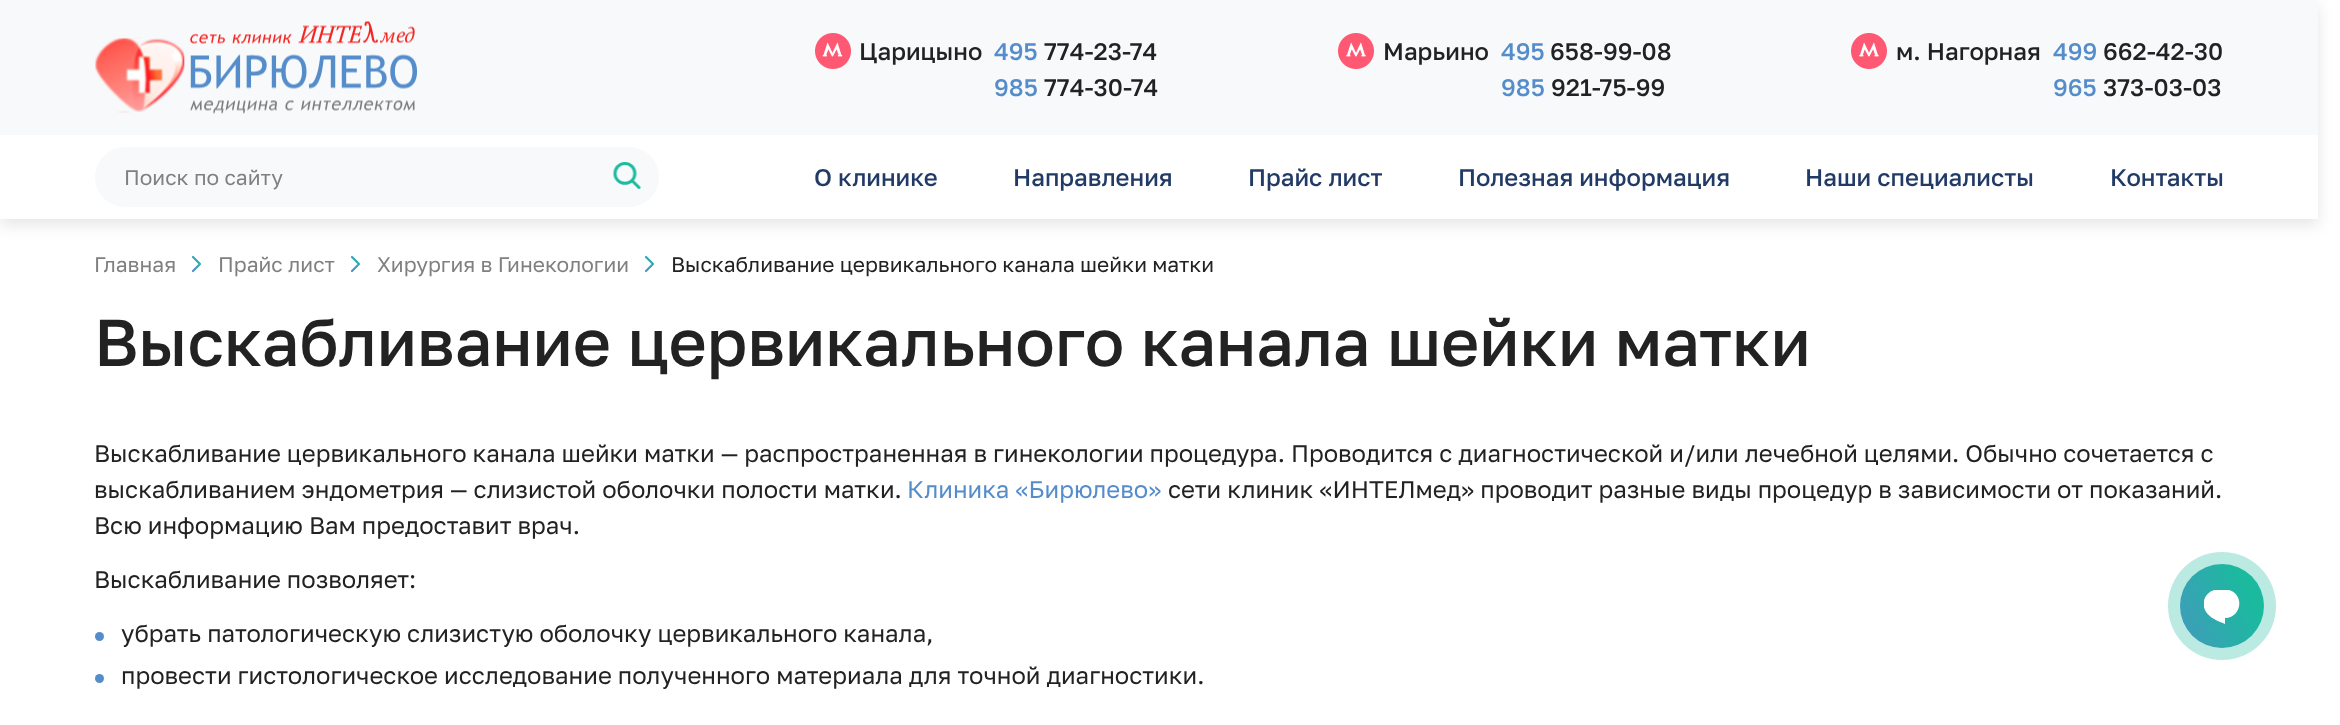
<svg xmlns="http://www.w3.org/2000/svg" width="2340" height="725" viewBox="0 0 2340 725">
  <defs>
    <linearGradient id="g1" gradientUnits="userSpaceOnUse" x1="193" y1="271" x2="204" y2="265"><stop offset="0" stop-color="rgb(85,141,202)"/><stop offset="1" stop-color="rgb(28,186,159)"/></linearGradient>
    <linearGradient id="g2" gradientUnits="userSpaceOnUse" x1="352" y1="271" x2="363" y2="265"><stop offset="0" stop-color="rgb(85,141,202)"/><stop offset="1" stop-color="rgb(28,186,159)"/></linearGradient>
    <linearGradient id="g3" gradientUnits="userSpaceOnUse" x1="646" y1="271" x2="657" y2="265"><stop offset="0" stop-color="rgb(85,141,202)"/><stop offset="1" stop-color="rgb(28,186,159)"/></linearGradient>
    <linearGradient id="g4" gradientUnits="userSpaceOnUse" x1="2171" y1="628" x2="2272" y2="584"><stop offset="0" stop-color="rgb(85,141,202)"/><stop offset="0.77" stop-color="rgb(28,186,159)"/></linearGradient>
    <clipPath id="clip1"><rect x="2204" y="590" width="36" height="34"/></clipPath>
  </defs>
  <rect width="100%" height="100%" fill="rgb(255,255,255)"/>
  <rect x="0" y="6" width="2318" height="219" fill="rgba(0,0,0,0.1)" filter="blur(7.5px)"/>
  <rect x="0" y="0" width="2318" height="135" fill="rgb(247,249,251)"/>
  <image x="95" y="21" width="322" height="93" href="pic1.png"/>
  <image x="815" y="33" width="36" height="36" href="pic2.png"/>
  <text x="859" y="60" font-family="Golos Text" font-size="24" font-weight="500" fill="rgb(34,34,34)">Царицыно</text>
  <text x="994" y="60" font-family="Golos Text" font-size="24" font-weight="500" fill="rgb(85,141,202)">495</text>
  <text x="1044" y="60" font-family="Golos Text" font-size="24" font-weight="500" fill="rgb(34,34,34)">774-23-74</text>
  <text x="994" y="96" font-family="Golos Text" font-size="24" font-weight="500" fill="rgb(85,141,202)">985</text>
  <text x="1044" y="96" font-family="Golos Text" font-size="24" font-weight="500" fill="rgb(34,34,34)">774-30-74</text>
  <image x="1338" y="33" width="36" height="36" href="pic3.png"/>
  <text x="1383" y="60" font-family="Golos Text" font-size="24" font-weight="500" fill="rgb(34,34,34)">Марьино</text>
  <text x="1501" y="60" font-family="Golos Text" font-size="24" font-weight="500" fill="rgb(85,141,202)">495</text>
  <text x="1550" y="60" font-family="Golos Text" font-size="24" font-weight="500" fill="rgb(34,34,34)">658-99-08</text>
  <text x="1501" y="96" font-family="Golos Text" font-size="24" font-weight="500" fill="rgb(85,141,202)">985</text>
  <text x="1551" y="96" font-family="Golos Text" font-size="24" font-weight="500" fill="rgb(34,34,34)">921-75-99</text>
  <image x="1851" y="33" width="36" height="36" href="pic3.png"/>
  <text x="1896" y="60" font-family="Golos Text" font-size="24" font-weight="500" fill="rgb(34,34,34)">м. Нагорная</text>
  <text x="2053" y="60" font-family="Golos Text" font-size="24" font-weight="500" fill="rgb(85,141,202)">499</text>
  <text x="2103" y="60" font-family="Golos Text" font-size="24" font-weight="500" fill="rgb(34,34,34)">662-42-30</text>
  <text x="2053" y="96" font-family="Golos Text" font-size="24" font-weight="500" fill="rgb(85,141,202)">965</text>
  <text x="2103" y="96" font-family="Golos Text" font-size="24" font-weight="500" fill="rgb(34,34,34)">373-03-03</text>
  <rect x="0" y="135" width="2318" height="84" fill="rgb(255,255,255)"/>
  <rect x="95" y="147" width="564" height="60" rx="30" fill="rgb(247,249,251)"/>
  <text x="124" y="185" font-family="Golos Text" font-size="21" fill="rgb(128,128,128)">Поиск по сайту</text>
  <image x="613" y="162" width="28" height="27" href="pic4.png"/>
  <g font-family="Golos Text" font-size="24" font-weight="500" fill="rgb(34,58,102)">
    <text x="814" y="186">О клинике</text>
    <text x="1013" y="186">Направления</text>
    <text x="1248" y="186">Прайс лист</text>
    <text x="1458" y="186">Полезная информация</text>
    <text x="1805" y="186">Наши специалисты</text>
    <text x="2110" y="186">Контакты</text>
  </g>
  <text x="94" y="272" font-family="Golos Text" font-size="21" fill="rgb(128,128,128)">Главная</text>
  <path d="M193 271L200 264L193 257" fill="none" stroke="url(#g1)" stroke-width="2.2" stroke-linecap="round" stroke-linejoin="round"/>
  <text x="218" y="272" font-family="Golos Text" font-size="21" fill="rgb(128,128,128)">Прайс лист</text>
  <path d="M352 271L359 264L352 257" fill="none" stroke="url(#g2)" stroke-width="2.2" stroke-linecap="round" stroke-linejoin="round"/>
  <text x="377" y="272" font-family="Golos Text" font-size="21" fill="rgb(128,128,128)">Хирургия в Гинекологии</text>
  <path d="M646 271L653 264L646 257" fill="none" stroke="url(#g3)" stroke-width="2.2" stroke-linecap="round" stroke-linejoin="round"/>
  <text x="671" y="272" font-family="Golos Text" font-size="21" fill="rgb(34,34,34)">Выскабливание цервикального канала шейки матки</text>
  <text x="94" y="366" font-family="Golos Text" font-size="66" font-weight="500" fill="rgb(34,34,34)">Выскабливание цервикального канала шейки матки</text>
  <g font-family="Golos Text" font-size="24" fill="rgb(34,34,34)">
    <text>
      <tspan x="94" y="462">Выскабливание цервикального канала шейки матки — распространенная в гинекологии процедура. Проводится с диагностической и/или лечебной целями. Обычно сочетается с</tspan>
      <tspan x="94" y="498">выскабливанием эндометрия — слизистой оболочки полости матки.</tspan>
    </text>
  </g>
  <text x="907" y="498" font-family="Golos Text" font-size="24" fill="rgb(85,141,202)">Клиника «Бирюлево»</text>
  <g font-family="Golos Text" font-size="24" fill="rgb(34,34,34)">
    <text x="1168" y="498">сети клиник «ИНТЕЛмед» проводит разные виды процедур в зависимости от показаний.</text>
    <text x="94" y="534">Всю информацию Вам предоставит врач.</text>
    <text x="94" y="588">Выскабливание позволяет:</text>
  </g>
  <circle cx="99.5" cy="636.5" r="4.5" fill="rgb(85,141,202)"/>
  <text x="121" y="642" font-family="Golos Text" font-size="24" fill="rgb(34,34,34)">убрать патологическую слизистую оболочку цервикального канала,</text>
  <circle cx="99.5" cy="678.5" r="4.5" fill="rgb(85,141,202)"/>
  <text x="121" y="684" font-family="Golos Text" font-size="24" fill="rgb(34,34,34)">провести гистологическое исследование полученного материала для точной диагностики.</text>
  <circle cx="2222" cy="606" r="42" fill="url(#g4)"/>
  <circle cx="2222" cy="606" r="54" fill="rgba(28,186,159,0.3)"/>
  <g clip-path="url(#clip1)">
    <path d="M2218 589.5C2222 589.5 2226.5 589 2230.5 590.5C2245 596.5 2240.5 618 2225 618V624C2218 621 2209.5 618 2205.5 611C2200 601.5 2207 589.5 2218 589.5Z" fill="rgb(255,255,255)"/>
  </g>
</svg>
